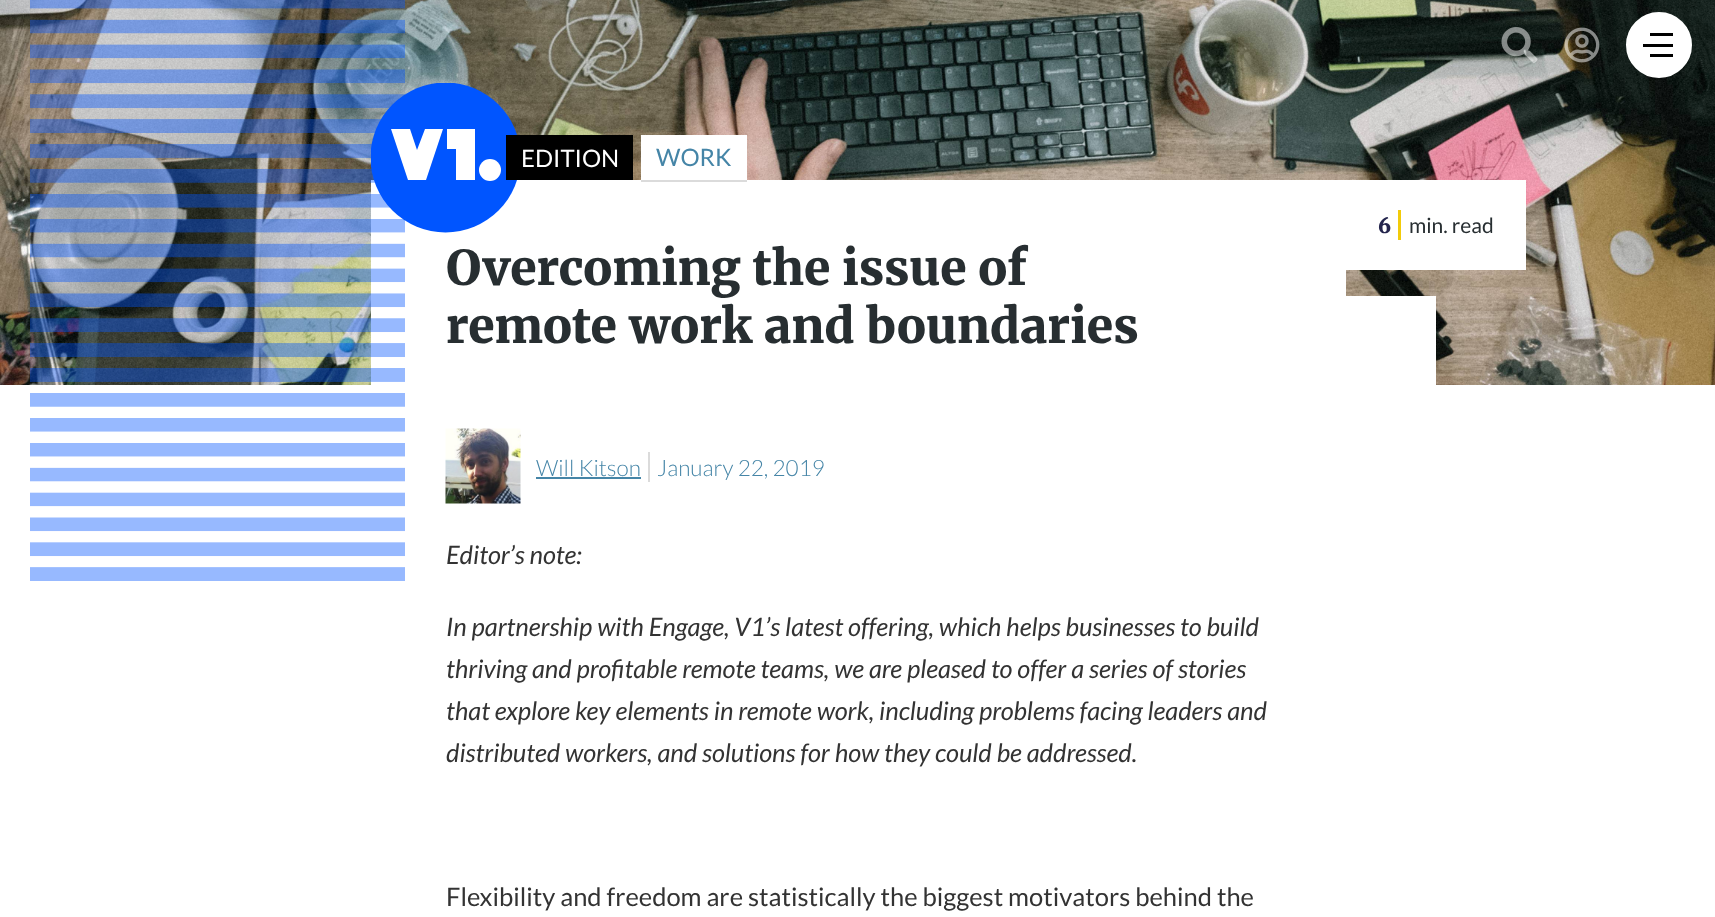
<svg xmlns="http://www.w3.org/2000/svg" width="1715" height="917" viewBox="0 0 1715 917">
  <defs>
    <clipPath id="clip1"><rect x="371" y="83" width="150" height="150"/></clipPath>
  </defs>
  <rect width="100%" height="100%" fill="rgb(255,255,255)"/>
  <image x="0" y="0" width="1715" height="385" href="pic3.png"/>
  <image x="1501" y="27" width="37" height="36" href="pic1.png"/>
  <image x="1564" y="27" width="36" height="36" href="pic2.png"/>
  <circle cx="1659" cy="45" r="32" fill="rgb(255,255,255)" stroke="rgb(255,255,255)" stroke-width="2"/>
  <rect x="1650" y="33" width="23" height="3" fill="rgb(0,0,0)"/>
  <rect x="1643" y="44" width="30" height="3" fill="rgb(0,0,0)"/>
  <rect x="1650" y="54" width="23" height="3" fill="rgb(0,0,0)"/>
  <rect x="371" y="180" width="975" height="205" fill="rgb(255,255,255)"/>
  <image x="30" y="0" width="375" height="581" href="pic4.png"/>
  <g clip-path="url(#clip1)">
    <circle cx="445.5" cy="157.5" r="75" fill="rgb(0,85,255)"/>
  </g>
  <path d="M425 129L417 150L410 129H391L408 180H426L443 129Z" fill="rgb(255,255,255)"/>
  <path d="M447 129H475V180H456V149H447Z" fill="rgb(255,255,255)"/>
  <circle cx="490" cy="170" r="11" fill="rgb(255,255,255)"/>
  <rect x="506" y="135" width="127" height="45" fill="rgb(0,0,0)"/>
  <text x="521" y="167" font-family="Lato" font-size="24" fill="rgb(255,255,255)">EDITION</text>
  <rect x="641" y="135" width="106" height="45" fill="rgb(255,255,255)"/>
  <rect x="641" y="180" width="106" height="2" fill="rgb(219,219,219)"/>
  <text x="656" y="166" font-family="Lato" font-size="24" fill="rgb(69,133,167)">WORK</text>
  <rect x="1346" y="180" width="180" height="90" fill="rgb(255,255,255)"/>
  <rect x="1398" y="210" width="3" height="30" fill="rgb(242,203,10)"/>
  <text x="1378" y="233" font-family="Merriweather" font-size="21" font-weight="900" fill="rgb(36,37,77)">6</text>
  <text x="1409" y="233" font-family="Lato" font-size="21" fill="rgb(39,46,49)">min. read</text>
  <g font-family="Merriweather" font-size="48" font-weight="900" fill="rgb(39,46,49)">
    <text>
      <tspan x="446" y="285">Overcoming the issue of</tspan>
      <tspan x="446" y="343">remote work and boundaries</tspan>
    </text>
  </g>
  <rect x="1346" y="296" width="90" height="89" fill="rgb(255,255,255)"/>
  <image x="445" y="428" width="76" height="76" href="pic5.png"/>
  <rect x="648" y="452" width="2" height="30" fill="rgb(219,219,219)"/>
  <text x="536" y="476" font-family="Lato" font-size="22.5" font-weight="300" fill="rgb(69,133,167)">Will Kitson</text>
  <rect x="536" y="477" width="105" height="2" fill="rgb(69,133,167)"/>
  <text x="657" y="476" font-family="Lato" font-size="22.5" font-weight="300" fill="rgb(69,133,167)">January 22, 2019</text>
  <g font-family="Lato" font-size="25.5" font-style="italic" fill="rgb(51,51,51)">
    <text x="446" y="564">Editor’s note:</text>
    <text>
      <tspan x="446" y="636">In partnership with Engage, V1’s latest offering, which helps businesses to build</tspan>
      <tspan x="446" y="678">thriving and profitable remote teams, we are pleased to offer a series of stories</tspan>
      <tspan x="446" y="720">that explore key elements in remote work, including problems facing leaders and</tspan>
      <tspan x="446" y="762">distributed workers, and solutions for how they could be addressed.</tspan>
    </text>
  </g>
  <text x="446" y="906" font-family="Lato" font-size="25.5" fill="rgb(51,51,51)">Flexibility and freedom are statistically the biggest motivators behind the</text>
</svg>
